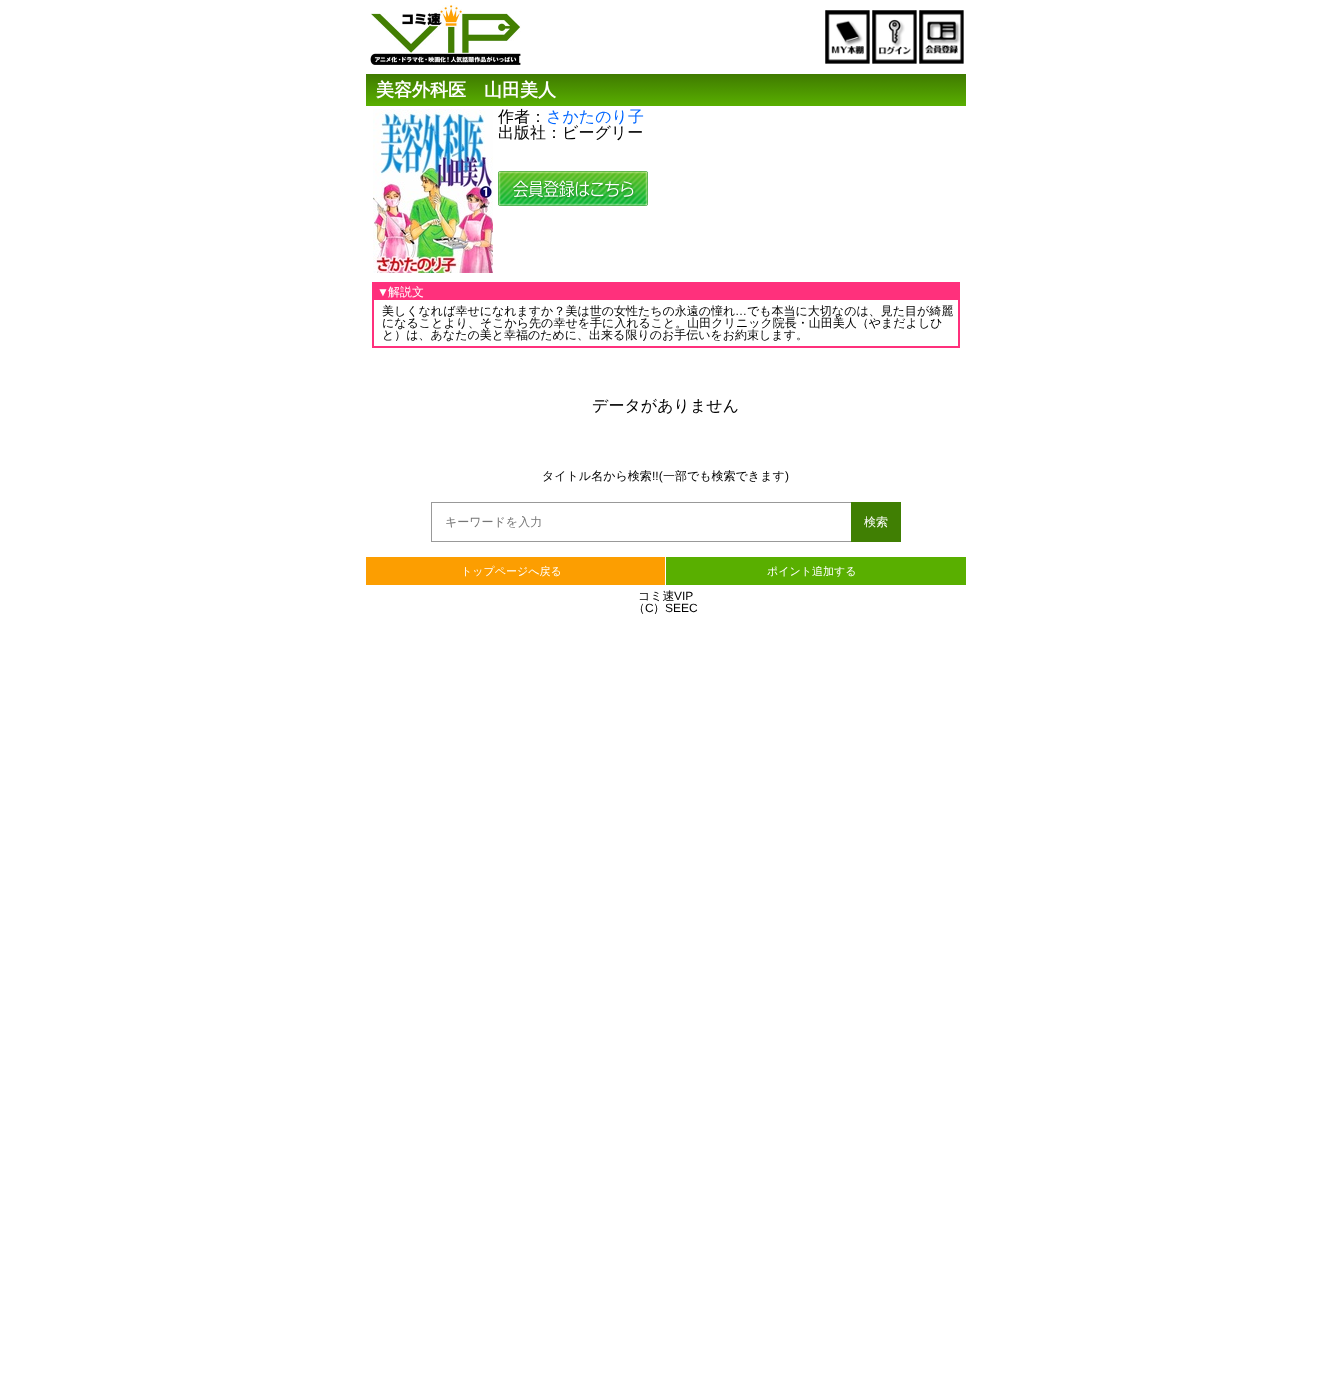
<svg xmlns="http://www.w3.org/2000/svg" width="1331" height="1394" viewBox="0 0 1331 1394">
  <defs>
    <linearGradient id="g1" gradientUnits="userSpaceOnUse" x1="666" y1="74" x2="666" y2="106"><stop offset="0" stop-color="rgb(63,122,0)"/><stop offset="1" stop-color="rgb(89,175,0)"/></linearGradient>
  </defs>
  <rect width="100%" height="100%" fill="rgb(255,255,255)"/>
  <image x="370" y="5" width="151" height="60" href="pic1.png"/>
  <image x="825" y="10" width="45" height="54" href="pic2.png"/>
  <image x="872" y="10" width="45" height="54" href="pic3.png"/>
  <image x="919" y="10" width="45" height="54" href="pic4.png"/>
  <rect x="366" y="74" width="600" height="32" fill="url(#g1)"/>
  <text x="376" y="96" font-family="WenQuanYi Zen Hei" font-size="18" font-weight="bold" fill="rgb(255,255,255)">美容外科医　山田美人</text>
  <image x="373" y="109" width="120" height="164" href="pic5.png"/>
  <text x="498" y="122" font-family="WenQuanYi Zen Hei" font-size="16" font-weight="500" fill="rgb(0,0,0)">作者：</text>
  <text x="546" y="122" font-family="WenQuanYi Zen Hei" font-size="16" font-weight="500" fill="rgb(0,102,255)">さかたのり子</text>
  <text x="498" y="138" font-family="WenQuanYi Zen Hei" font-size="16" font-weight="500" fill="rgb(0,0,0)">出版社：ビーグリー</text>
  <image x="498" y="171" width="150" height="35" href="pic6.png"/>
  <rect x="372" y="282" width="588" height="66" fill="rgb(255,48,124)"/>
  <text x="377" y="296" font-family="Liberation Sans" font-size="12" fill="rgb(255,255,255)">▼</text>
  <text x="388" y="296" font-family="WenQuanYi Zen Hei" font-size="12" font-weight="500" fill="rgb(255,255,255)">解説文</text>
  <rect x="374" y="300" width="584" height="46" fill="rgb(255,255,255)"/>
  <text x="382" y="315" font-family="WenQuanYi Zen Hei" font-size="12" font-weight="500" fill="rgb(0,0,0)">美しくなれば幸せになれますか？美は世の女性たちの永遠の憧れ</text>
  <text x="735" y="315" font-family="Liberation Sans" font-size="12" fill="rgb(0,0,0)">…</text>
  <g font-family="WenQuanYi Zen Hei" font-size="12" font-weight="500" fill="rgb(0,0,0)">
    <text x="747" y="315">でも本当に大切なのは、見た目が綺麗</text>
    <text>
      <tspan x="382" y="327">になることより、そこから先の幸せを手に入れること。山田クリニック院長・山田美人（やまだよしひ</tspan>
      <tspan x="382" y="339">と）は、あなたの美と幸福のために、出来る限りのお手伝いをお約束します。</tspan>
    </text>
  </g>
  <text x="592" y="411" font-family="WenQuanYi Zen Hei" font-size="16" font-weight="500" fill="rgb(0,0,0)">データがありません</text>
  <text x="542" y="480" font-family="WenQuanYi Zen Hei" font-size="12" font-weight="500" fill="rgb(0,0,0)">タイトル名から検索</text>
  <text x="652" y="480" font-family="Liberation Sans" font-size="12" fill="rgb(0,0,0)">!!(</text>
  <text x="663" y="480" font-family="WenQuanYi Zen Hei" font-size="12" font-weight="500" fill="rgb(0,0,0)">一部でも検索できます</text>
  <text x="785" y="480" font-family="Liberation Sans" font-size="12" fill="rgb(0,0,0)">)</text>
  <rect x="431" y="502" width="420" height="1" fill="rgb(153,153,153)"/>
  <rect x="431" y="541" width="420" height="1" fill="rgb(153,153,153)"/>
  <rect x="431" y="502" width="1" height="40" fill="rgb(153,153,153)"/>
  <text x="445" y="526" font-family="WenQuanYi Zen Hei" font-size="12" font-weight="500" fill="rgb(117,117,117)">キーワードを入力</text>
  <rect x="851" y="502" width="50" height="40" fill="rgb(64,127,3)"/>
  <text x="864" y="526" font-family="WenQuanYi Zen Hei" font-size="12" font-weight="500" fill="rgb(255,255,255)">検索</text>
  <rect x="366" y="557" width="299" height="28" fill="rgb(252,158,1)"/>
  <text x="461" y="575" font-family="WenQuanYi Zen Hei" font-size="11" font-weight="500" fill="rgb(255,255,255)">トップページへ戻る</text>
  <rect x="666" y="557" width="300" height="28" fill="rgb(89,175,0)"/>
  <text x="767" y="575" font-family="WenQuanYi Zen Hei" font-size="11" font-weight="500" fill="rgb(255,255,255)">ポイント追加する</text>
  <text x="638" y="600" font-family="WenQuanYi Zen Hei" font-size="12" font-weight="500" fill="rgb(0,0,0)">コミ速</text>
  <text x="674" y="600" font-family="Liberation Sans" font-size="12" fill="rgb(0,0,0)">VIP</text>
  <text x="633" y="612" font-family="WenQuanYi Zen Hei" font-size="12" font-weight="500" fill="rgb(0,0,0)">（</text>
  <text x="645" y="612" font-family="Liberation Sans" font-size="12" fill="rgb(0,0,0)">C</text>
  <text x="653" y="612" font-family="WenQuanYi Zen Hei" font-size="12" font-weight="500" fill="rgb(0,0,0)">）</text>
  <text x="665" y="612" font-family="Liberation Sans" font-size="12" fill="rgb(0,0,0)">SEEC</text>
</svg>
